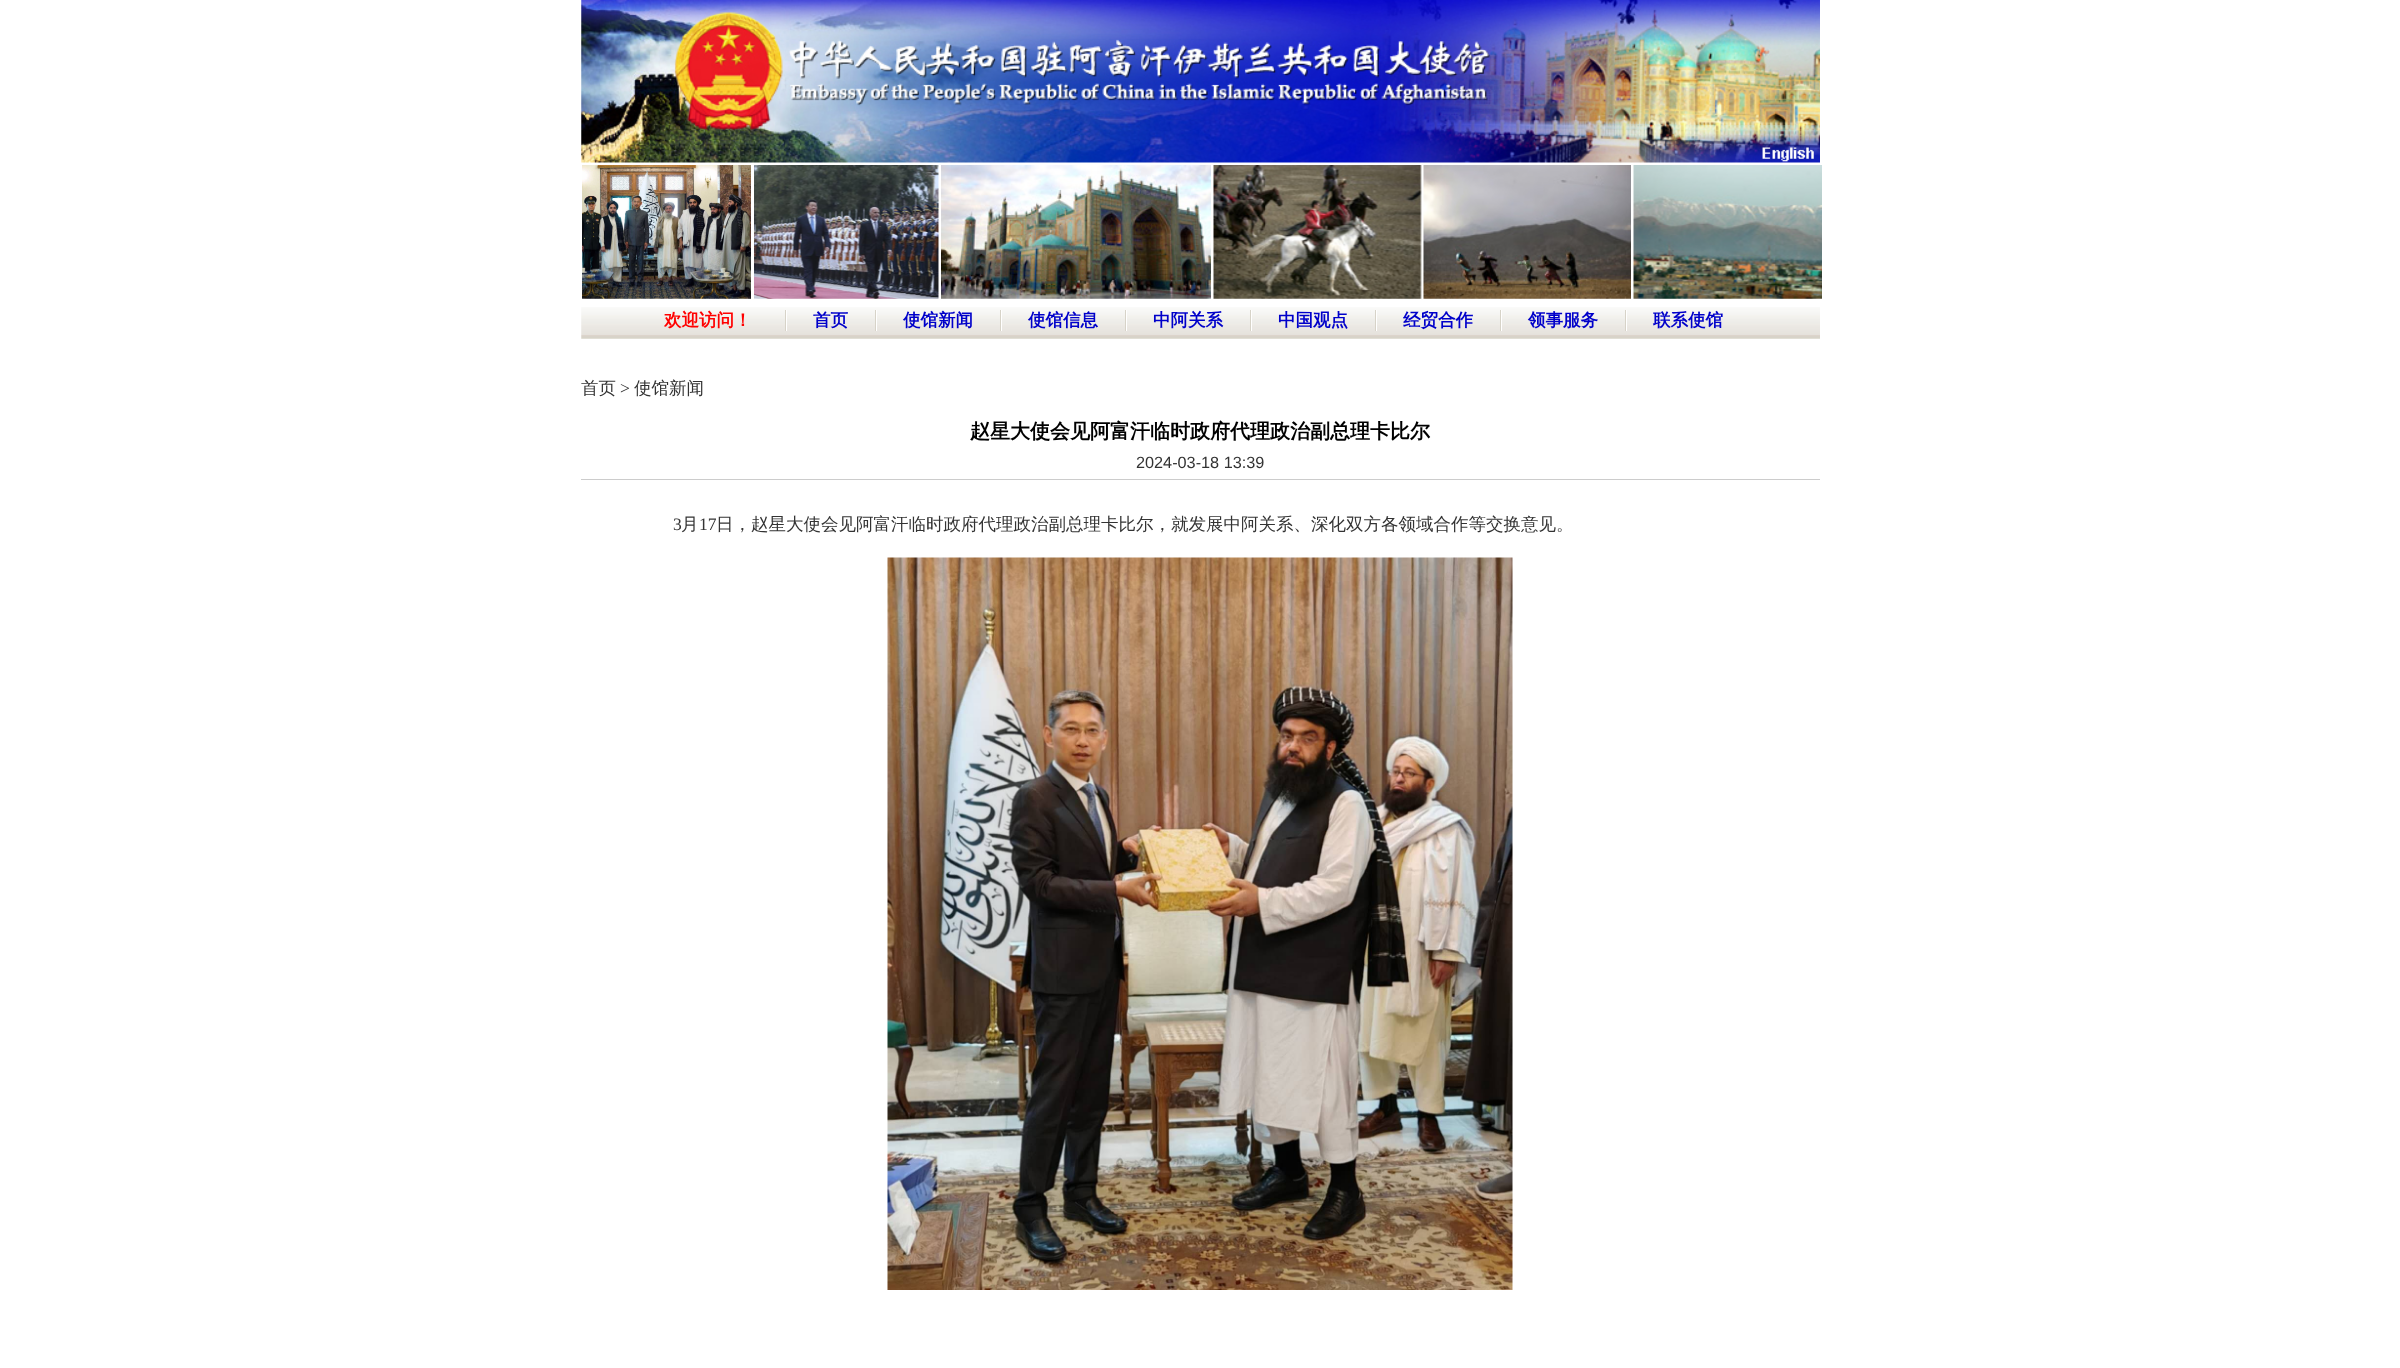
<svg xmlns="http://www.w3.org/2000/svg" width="2400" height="1368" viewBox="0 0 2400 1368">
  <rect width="100%" height="100%" fill="rgb(255,255,255)"/>
  <image x="581" y="0" width="1239" height="163" href="pic1.png"/>
  <image x="582" y="165" width="169" height="134" href="pic2.png"/>
  <image x="754" y="165" width="185" height="134" href="pic3.png"/>
  <image x="941" y="165" width="270" height="134" href="pic4.png"/>
  <image x="1213" y="165" width="209" height="134" href="pic5.png"/>
  <image x="1423" y="165" width="208" height="134" href="pic6.png"/>
  <image x="1633" y="165" width="189" height="134" href="pic7.png"/>
  <image x="581" y="307" width="1239" height="32" href="pic8.png"/>
  <rect x="785" y="310" width="1" height="21" fill="rgb(215,211,200)"/>
  <text x="664" y="326" font-family="WenQuanYi Zen Hei" font-size="17.5" font-weight="bold" fill="rgb(255,0,0)">欢迎访问！</text>
  <rect x="875" y="310" width="1" height="21" fill="rgb(215,211,200)"/>
  <rect x="786" y="310" width="1" height="21" fill="rgb(255,255,255)"/>
  <text x="813" y="326" font-family="WenQuanYi Zen Hei" font-size="17.5" font-weight="bold" fill="rgb(0,0,202)">首页</text>
  <rect x="1000" y="310" width="1" height="21" fill="rgb(215,211,200)"/>
  <rect x="876" y="310" width="1" height="21" fill="rgb(255,255,255)"/>
  <text x="903" y="326" font-family="WenQuanYi Zen Hei" font-size="17.5" font-weight="bold" fill="rgb(0,0,202)">使馆新闻</text>
  <rect x="1125" y="310" width="1" height="21" fill="rgb(215,211,200)"/>
  <rect x="1001" y="310" width="1" height="21" fill="rgb(255,255,255)"/>
  <text x="1028" y="326" font-family="WenQuanYi Zen Hei" font-size="17.5" font-weight="bold" fill="rgb(0,0,202)">使馆信息</text>
  <rect x="1250" y="310" width="1" height="21" fill="rgb(215,211,200)"/>
  <rect x="1126" y="310" width="1" height="21" fill="rgb(255,255,255)"/>
  <text x="1153" y="326" font-family="WenQuanYi Zen Hei" font-size="17.5" font-weight="bold" fill="rgb(0,0,202)">中阿关系</text>
  <rect x="1375" y="310" width="1" height="21" fill="rgb(215,211,200)"/>
  <rect x="1251" y="310" width="1" height="21" fill="rgb(255,255,255)"/>
  <text x="1278" y="326" font-family="WenQuanYi Zen Hei" font-size="17.5" font-weight="bold" fill="rgb(0,0,202)">中国观点</text>
  <rect x="1500" y="310" width="1" height="21" fill="rgb(215,211,200)"/>
  <rect x="1376" y="310" width="1" height="21" fill="rgb(255,255,255)"/>
  <text x="1403" y="326" font-family="WenQuanYi Zen Hei" font-size="17.5" font-weight="bold" fill="rgb(0,0,202)">经贸合作</text>
  <rect x="1625" y="310" width="1" height="21" fill="rgb(215,211,200)"/>
  <rect x="1501" y="310" width="1" height="21" fill="rgb(255,255,255)"/>
  <text x="1528" y="326" font-family="WenQuanYi Zen Hei" font-size="17.5" font-weight="bold" fill="rgb(0,0,202)">领事服务</text>
  <rect x="1626" y="310" width="1" height="21" fill="rgb(255,255,255)"/>
  <text x="1653" y="326" font-family="WenQuanYi Zen Hei" font-size="17.5" font-weight="bold" fill="rgb(0,0,202)">联系使馆</text>
  <text x="581" y="394" font-family="WenQuanYi Zen Hei" font-size="17.5" font-weight="500" fill="rgb(51,51,51)">首页</text>
  <text x="620" y="394" font-family="Liberation Serif" font-size="17.5" fill="rgb(51,51,51)">&gt;</text>
  <text x="634" y="394" font-family="WenQuanYi Zen Hei" font-size="17.5" font-weight="500" fill="rgb(51,51,51)">使馆新闻</text>
  <text x="970" y="438" font-family="WenQuanYi Zen Hei" font-size="20" font-weight="bold" fill="rgb(0,0,0)">赵星大使会见阿富汗临时政府代理政治副总理卡比尔</text>
  <text x="1136" y="468" font-family="Liberation Sans" font-size="16.25" fill="rgb(51,51,51)">2024-03-18 13:39</text>
  <rect x="581" y="479" width="1239" height="1" fill="rgb(204,204,204)"/>
  <text x="673" y="530" font-family="Liberation Serif" font-size="17.5" fill="rgb(51,51,51)">3</text>
  <text x="681" y="530" font-family="WenQuanYi Zen Hei" font-size="17.5" font-weight="500" fill="rgb(51,51,51)">月</text>
  <text x="699" y="530" font-family="Liberation Serif" font-size="17.5" fill="rgb(51,51,51)">17</text>
  <text x="716" y="530" font-family="WenQuanYi Zen Hei" font-size="17.5" font-weight="500" fill="rgb(51,51,51)">日，赵星大使会见阿富汗临时政府代理政治副总理卡比尔，就发展中阿关系、深化双方各领域合作等交换意见。</text>
  <image x="887" y="557" width="626" height="733" href="pic9.png"/>
</svg>
